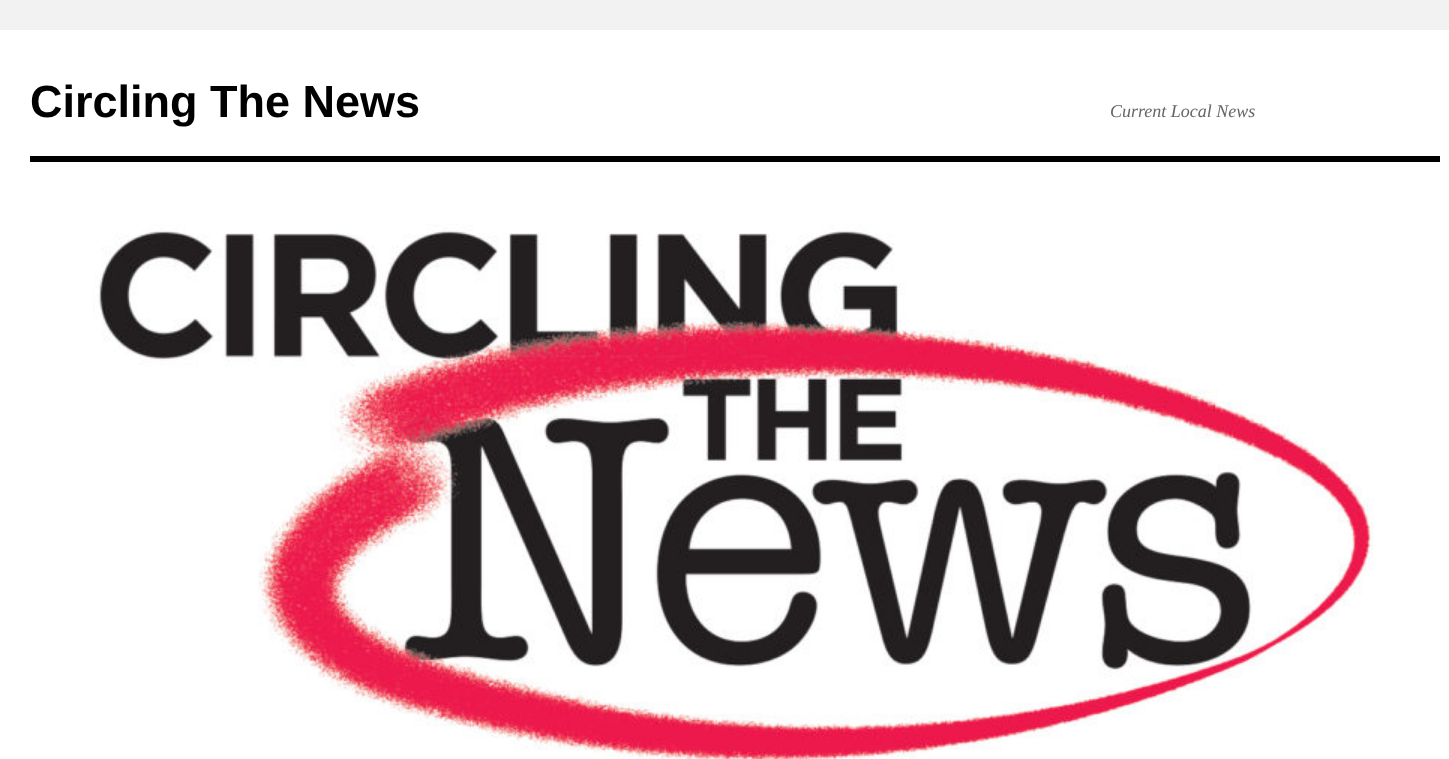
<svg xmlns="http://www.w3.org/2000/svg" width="1449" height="759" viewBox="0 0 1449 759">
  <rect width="100%" height="100%" fill="rgb(242,242,242)"/>
  <rect x="0" y="30" width="1449" height="729" fill="rgb(255,255,255)"/>
  <text x="30" y="117" font-family="Liberation Sans" font-size="45" font-weight="bold" fill="rgb(0,0,0)">Circling The News</text>
  <text x="1110" y="117" font-family="Liberation Serif" font-size="18" font-style="italic" fill="rgb(102,102,102)">Current Local News</text>
  <rect x="30" y="156" width="1410" height="6" fill="rgb(0,0,0)"/>
  <image x="93" y="224" width="1281" height="535" href="pic1.png"/>
</svg>
